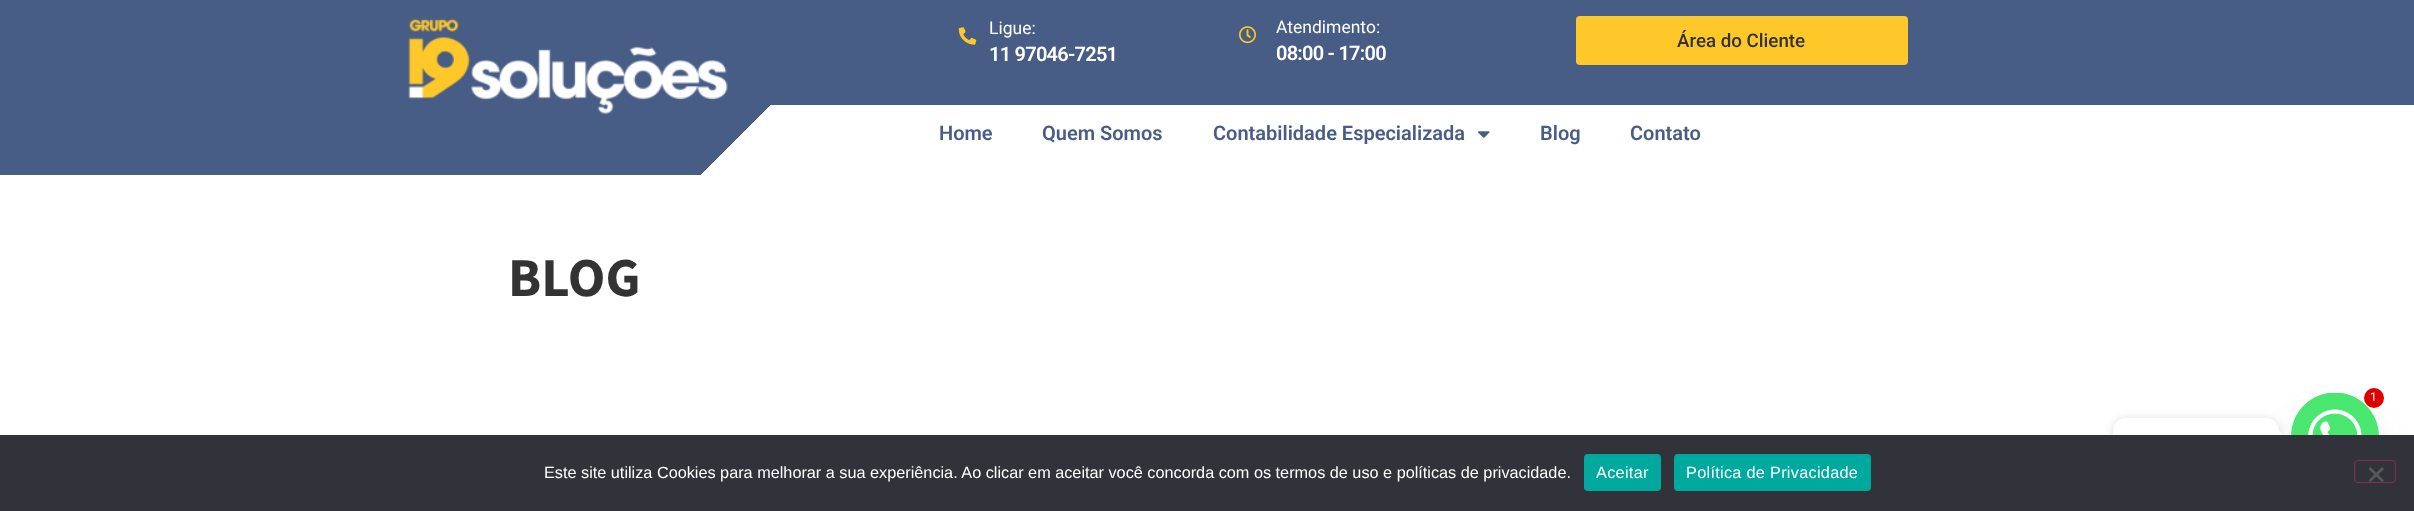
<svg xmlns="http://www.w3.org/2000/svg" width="2414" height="511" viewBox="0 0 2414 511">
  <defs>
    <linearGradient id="g1" gradientUnits="userSpaceOnUse" x1="1857" y1="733" x2="558" y2="-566"><stop offset="0.66" stop-color="rgb(255,255,255)"/><stop offset="0.66" stop-color="rgb(72,93,133)"/></linearGradient>
  </defs>
  <rect width="100%" height="100%" fill="rgb(255,255,255)"/>
  <rect x="0" y="0" width="2414" height="105" fill="rgb(72,93,133)"/>
  <rect x="0" y="105" width="770" height="70" fill="url(#g1)"/>
  <image x="408" y="18" width="320" height="96" href="pic1.png"/>
  <image x="958" y="27" width="19" height="18" href="pic2.png"/>
  <text x="989" y="34" font-family="Roboto" font-size="17.5" fill="rgb(255,255,255)">Ligue:</text>
  <text x="989" y="61" font-family="Roboto" font-size="20" font-weight="600" letter-spacing="-0.75" fill="rgb(255,255,255)">11 97046-7251</text>
  <image x="1239" y="26" width="17" height="18" href="pic3.png"/>
  <text x="1276" y="33" font-family="Roboto" font-size="17.5" fill="rgb(255,255,255)">Atendimento:</text>
  <text x="1276" y="60" font-family="Roboto" font-size="20" font-weight="600" letter-spacing="-0.75" fill="rgb(255,255,255)">08:00 - 17:00</text>
  <rect x="1576" y="16" width="332" height="49" rx="4" fill="rgb(254,200,42)"/>
  <text x="1677" y="47" font-family="Roboto" font-size="18.75" font-weight="500" fill="rgb(51,51,51)">Área do Cliente</text>
  <g font-family="Roboto" font-size="20" font-weight="600" fill="rgb(72,93,133)">
    <text x="939" y="140">Home</text>
    <text x="1042" y="140">Quem Somos</text>
    <text x="1213" y="140">Contabilidade Especializada</text>
  </g>
  <image x="1478" y="131" width="12" height="7" href="pic4.png"/>
  <g font-family="Roboto" font-size="20" font-weight="600" fill="rgb(72,93,133)">
    <text x="1540" y="140">Blog</text>
    <text x="1630" y="140">Contato</text>
  </g>
  <text x="508" y="296" font-family="Source Sans Pro" font-size="55" font-weight="bold" fill="rgb(51,51,51)">BLOG</text>
  <rect x="2291" y="413" width="88" height="87" rx="43.5" fill="rgba(73,104,126,0.16)" filter="blur(15px)"/>
  <rect x="2291" y="393" width="88" height="87" rx="43.5" fill="rgb(73,230,112)"/>
  <image x="2291" y="393" width="88" height="42" href="pic5.png"/>
  <circle cx="2374" cy="398" r="10" fill="rgb(221,0,0)"/>
  <text x="2370" y="401" font-family="Roboto" font-size="12" fill="rgb(255,255,255)">1</text>
  <rect x="2113" y="419" width="166" height="39" rx="13" fill="rgba(0,0,0,0.15)" filter="blur(5px)"/>
  <rect x="2113" y="418" width="166" height="38" rx="13" fill="rgb(255,255,255)"/>
  <path d="M2279 443V430.5L2285 437Z" fill="rgb(255,255,255)"/>
  <rect x="0" y="435" width="2414" height="76" fill="rgb(50,50,58)"/>
  <text x="544" y="478" font-family="Liberation Sans" font-size="16.25" fill="rgb(255,255,255)">Este site utiliza Cookies para melhorar a sua experiência. Ao clicar em aceitar você concorda com os termos de uso e políticas de privacidade.</text>
  <rect x="1584" y="454" width="77" height="37" rx="4" fill="rgb(0,169,157)"/>
  <text x="1596" y="478" font-family="Liberation Sans" font-size="16.25" letter-spacing="0.3" fill="rgb(255,255,255)">Aceitar</text>
  <rect x="1674" y="454" width="197" height="37" rx="4" fill="rgb(0,169,157)"/>
  <text x="1686" y="478" font-family="Liberation Sans" font-size="16.25" letter-spacing="0.3" fill="rgb(255,255,255)">Política de Privacidade</text>
  <rect x="2354.5" y="460.5" width="41" height="22" rx="3.5" fill="none" stroke="rgb(127,51,80)"/>
  <path d="M2382 467L2384 469L2370.5 482L2368.5 480.5Z" fill="rgb(89,89,93)"/>
  <path d="M2368.5 469L2370.5 467L2384 480.5L2382 482Z" fill="rgb(89,89,93)"/>
</svg>
